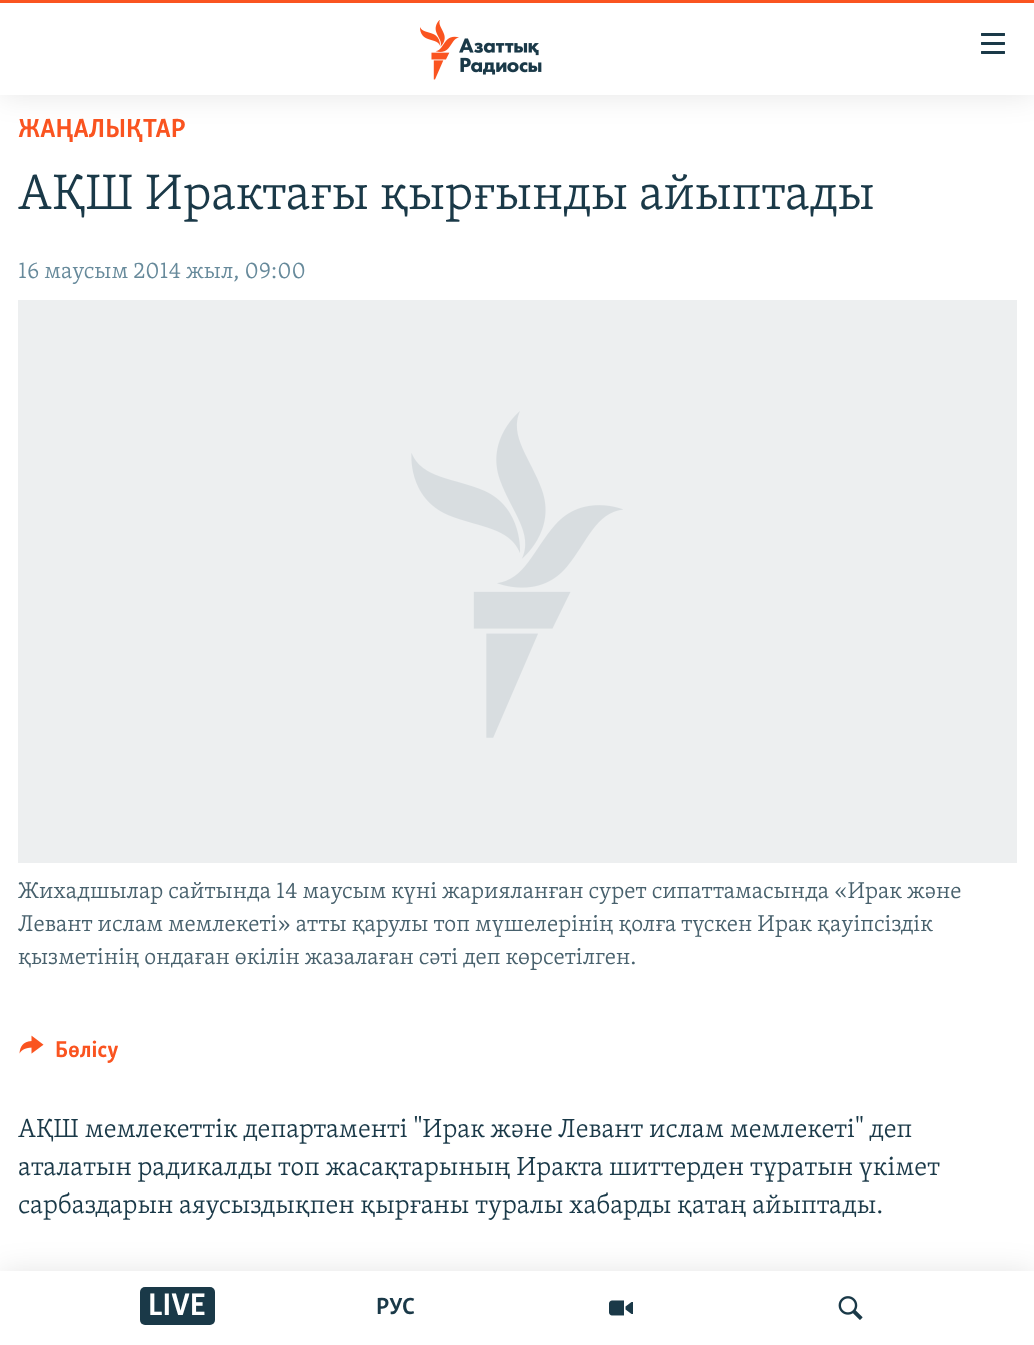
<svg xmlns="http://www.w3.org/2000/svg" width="1034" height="1345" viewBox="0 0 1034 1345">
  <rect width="100%" height="100%" fill="rgb(255,255,255)"/>
  <text x="18" y="137" font-family="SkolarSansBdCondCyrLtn" font-size="27" font-weight="bold" fill="rgb(250,84,32)">ЖАҢАЛЫҚТАР</text>
  <text x="18" y="209" font-family="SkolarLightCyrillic" font-size="51.25" font-weight="300" fill="rgb(26,57,72)">АҚШ Ирактағы қырғынды айыптады</text>
  <text x="18" y="278" font-family="SkolarLightCyrillic" font-size="23.6" font-weight="300" fill="rgb(103,138,155)">16 маусым 2014 жыл, 09:00</text>
  <rect x="18" y="300" width="999" height="563" fill="rgb(237,239,240)"/>
  <image x="411" y="411" width="212" height="327" href="pic1.png"/>
  <g font-family="SkolarLightCyrillic" font-size="23.6" font-weight="300" fill="rgb(72,97,109)">
    <text>
      <tspan x="18" y="898">Жихадшылар сайтында 14 маусым күні жарияланған сурет сипаттамасында «Ирак және</tspan>
      <tspan x="18" y="931">Левант ислам мемлекеті» атты қарулы топ мүшелерінің қолға түскен Ирак қауіпсіздік</tspan>
      <tspan x="18" y="964">қызметінің ондаған өкілін жазалаған сәті деп көрсетілген.</tspan>
    </text>
  </g>
  <image x="19" y="1035" width="25" height="19" href="pic2.png"/>
  <text x="55" y="1057" font-family="SkolarSansBdCondCyrLtn" font-size="23.6" font-weight="bold" fill="rgb(250,84,32)">Бөлісу</text>
  <g font-family="SkolarLightCyrillic" font-size="27" font-weight="300" fill="rgb(26,57,72)">
    <text>
      <tspan x="18" y="1137">АҚШ мемлекеттік департаменті "Ирак және Левант ислам мемлекеті" деп</tspan>
      <tspan x="18" y="1175">аталатын радикалды топ жасақтарының Иракта шиттерден тұратын үкімет</tspan>
      <tspan x="18" y="1213">сарбаздарын аяусыздықпен қырғаны туралы хабарды қатаң айыптады.</tspan>
    </text>
  </g>
  <rect x="0" y="0" width="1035" height="95" fill="rgba(0,0,0,0.1)" filter="blur(15px)"/>
  <rect x="0" y="3" width="1034" height="92" fill="rgb(255,255,255)"/>
  <rect x="0" y="0" width="1034" height="3" fill="rgb(250,84,32)"/>
  <image x="420" y="20" width="122" height="60" href="pic3.png"/>
  <image x="981" y="33" width="24" height="21" href="pic4.png"/>
  <rect x="0" y="1271" width="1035" height="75" fill="rgba(0,0,0,0.1)" filter="blur(15px)"/>
  <rect x="0" y="1271" width="1034" height="74" fill="rgb(255,255,255)"/>
  <rect x="140" y="1287" width="75" height="38" rx="5" fill="rgb(26,57,72)"/>
  <text x="148" y="1315" font-family="SkolarSansBdCondCyrLtn" font-size="32" font-weight="bold" fill="rgb(255,255,255)">LIVE</text>
  <text x="376" y="1314" font-family="SkolarSansBdCondCyrLtn" font-size="24" font-weight="bold" fill="rgb(26,57,72)">РУС</text>
  <image x="609" y="1300" width="24" height="16" href="pic5.png"/>
  <image x="838" y="1296" width="25" height="24" href="pic6.png"/>
</svg>
